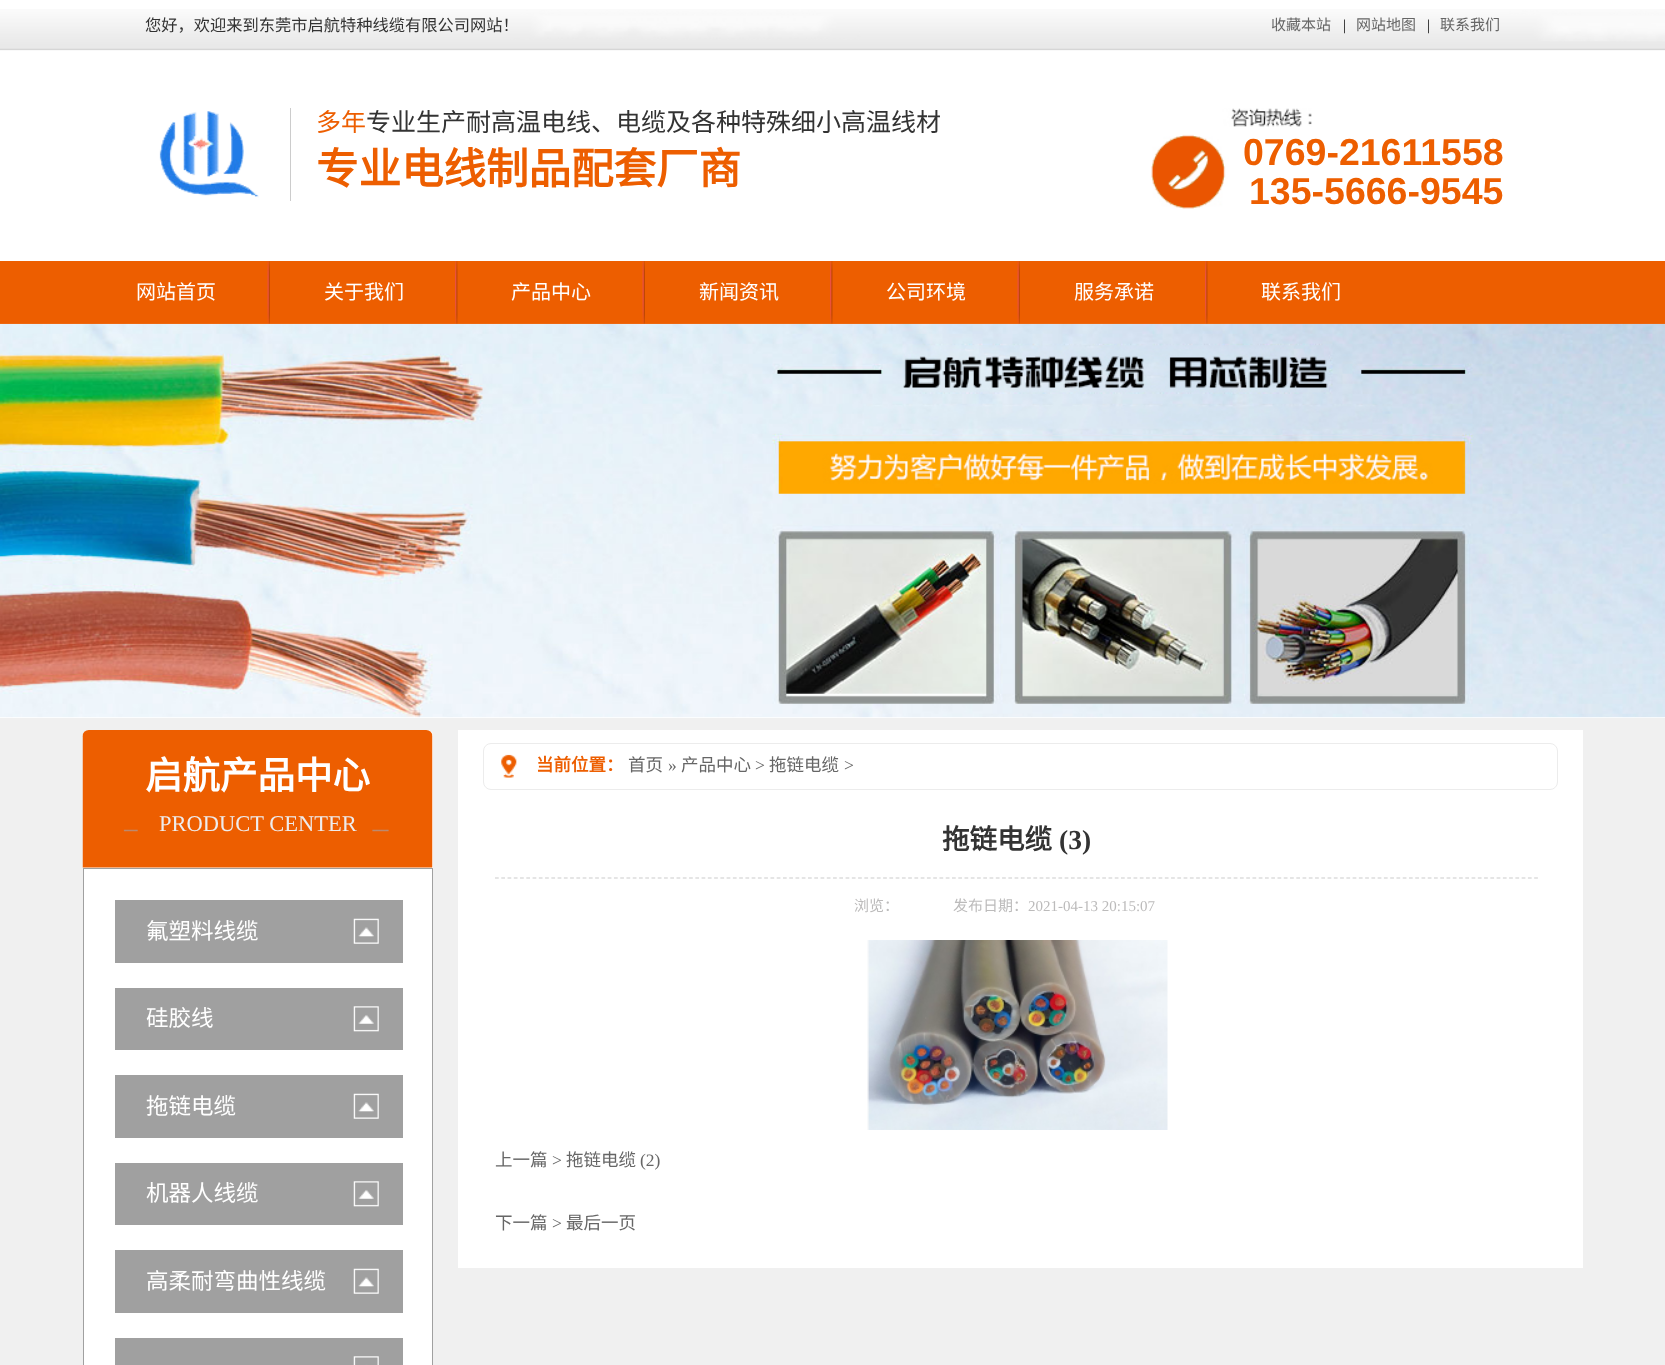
<svg xmlns="http://www.w3.org/2000/svg" width="1665" height="1365" viewBox="0 0 1665 1365">
  <rect width="100%" height="100%" fill="rgb(255,255,255)"/>
  <image x="0" y="9" width="1665" height="42" href="pic1.png"/>
  <text x="145" y="31" font-family="Noto Sans CJK SC" font-size="16.25" fill="rgb(51,51,51)">您好，欢迎来到东莞市启航特种线缆有限公司网站！</text>
  <text x="1271" y="30" font-family="Noto Sans CJK SC" font-size="15" fill="rgb(102,102,102)">收藏本站</text>
  <text x="1343" y="30" font-family="Liberation Serif" font-size="15" fill="rgb(0,0,0)">|</text>
  <text x="1356" y="30" font-family="Noto Sans CJK SC" font-size="15" fill="rgb(102,102,102)">网站地图</text>
  <text x="1427" y="30" font-family="Liberation Serif" font-size="15" fill="rgb(0,0,0)">|</text>
  <text x="1440" y="30" font-family="Noto Sans CJK SC" font-size="15" fill="rgb(102,102,102)">联系我们</text>
  <image x="159" y="111" width="100" height="87" href="pic2.png"/>
  <rect x="290" y="108" width="1" height="93" fill="rgb(204,204,204)"/>
  <text x="316" y="131" font-family="Noto Sans CJK SC" font-size="25" fill="rgb(237,94,0)">多年</text>
  <text x="366" y="131" font-family="Noto Sans CJK SC" font-size="25" fill="rgb(51,51,51)">专业生产耐高温电线、电缆及各种特殊细小高温线材</text>
  <text x="316" y="184" font-family="Noto Sans CJK SC" font-size="42.5" font-weight="bold" fill="rgb(237,94,0)">专业电线制品配套厂商</text>
  <image x="1151" y="108" width="161" height="101" href="pic3.png"/>
  <g font-family="Liberation Sans" font-size="37.5" font-weight="bold" fill="rgb(237,94,0)">
    <text x="1243" y="165">0769-21611558</text>
    <text x="1249" y="204">135-5666-9545</text>
  </g>
  <rect x="0" y="261" width="1665" height="63" fill="rgb(237,94,0)"/>
  <image x="267" y="261" width="3" height="63" href="pic4.png"/>
  <text x="136" y="299" font-family="Noto Sans CJK SC" font-size="20" fill="rgb(255,255,255)">网站首页</text>
  <image x="455" y="261" width="3" height="63" href="pic5.png"/>
  <text x="324" y="299" font-family="Noto Sans CJK SC" font-size="20" fill="rgb(255,255,255)">关于我们</text>
  <image x="642" y="261" width="3" height="63" href="pic4.png"/>
  <text x="511" y="299" font-family="Noto Sans CJK SC" font-size="20" fill="rgb(255,255,255)">产品中心</text>
  <image x="830" y="261" width="3" height="63" href="pic5.png"/>
  <text x="699" y="299" font-family="Noto Sans CJK SC" font-size="20" fill="rgb(255,255,255)">新闻资讯</text>
  <image x="1017" y="261" width="3" height="63" href="pic4.png"/>
  <text x="886" y="299" font-family="Noto Sans CJK SC" font-size="20" fill="rgb(255,255,255)">公司环境</text>
  <image x="1205" y="261" width="3" height="63" href="pic5.png"/>
  <g font-family="Noto Sans CJK SC" font-size="20" fill="rgb(255,255,255)">
    <text x="1074" y="299">服务承诺</text>
    <text x="1261" y="299">联系我们</text>
  </g>
  <image x="0" y="323" width="1665" height="395" href="pic6.png"/>
  <rect x="0" y="718" width="1665" height="647" fill="rgb(240,240,240)"/>
  <path d="M89 730H427C430.5 730 433 732.5 433 736V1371H83V736C83 732.5 85.5 730 89 730Z" fill="rgb(255,255,255)"/>
  <image x="82" y="730" width="351" height="138" href="pic7.png"/>
  <text x="145" y="789" font-family="Noto Sans CJK SC" font-size="37.5" font-weight="bold" fill="rgb(255,255,255)">启航产品中心</text>
  <text x="159" y="831" font-family="Liberation Serif" font-size="22.5" fill="rgb(238,236,236)">PRODUCT CENTER</text>
  <rect x="83.5" y="868.5" width="349" height="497" fill="none" stroke="rgb(160,160,160)"/>
  <rect x="115" y="900" width="288" height="63" fill="rgb(160,160,160)"/>
  <image x="353" y="918" width="26" height="26" href="pic8.png"/>
  <text x="146" y="939" font-family="Noto Sans CJK SC" font-size="22.5" fill="rgb(255,255,255)">氟塑料线缆</text>
  <rect x="115" y="988" width="288" height="62" fill="rgb(160,160,160)"/>
  <image x="353" y="1006" width="26" height="26" href="pic9.png"/>
  <text x="146" y="1026" font-family="Noto Sans CJK SC" font-size="22.5" fill="rgb(255,255,255)">硅胶线</text>
  <rect x="115" y="1075" width="288" height="63" fill="rgb(160,160,160)"/>
  <image x="353" y="1093" width="26" height="26" href="pic8.png"/>
  <text x="146" y="1114" font-family="Noto Sans CJK SC" font-size="22.5" fill="rgb(255,255,255)">拖链电缆</text>
  <rect x="115" y="1163" width="288" height="62" fill="rgb(160,160,160)"/>
  <image x="353" y="1181" width="26" height="26" href="pic9.png"/>
  <text x="146" y="1201" font-family="Noto Sans CJK SC" font-size="22.5" fill="rgb(255,255,255)">机器人线缆</text>
  <rect x="115" y="1250" width="288" height="63" fill="rgb(160,160,160)"/>
  <image x="353" y="1268" width="26" height="26" href="pic8.png"/>
  <text x="146" y="1289" font-family="Noto Sans CJK SC" font-size="22.5" fill="rgb(255,255,255)">高柔耐弯曲性线缆</text>
  <rect x="115" y="1338" width="288" height="27" fill="rgb(160,160,160)"/>
  <image x="353" y="1356" width="26" height="9" href="pic10.png"/>
  <rect x="458" y="730" width="1125" height="538" fill="rgb(255,255,255)"/>
  <image x="501" y="754" width="16" height="24" href="pic11.png"/>
  <rect x="483.5" y="743.5" width="1074" height="46" rx="7.5" fill="none" stroke="rgb(236,236,236)"/>
  <text x="536" y="771" font-family="Noto Sans CJK SC" font-size="17.5" font-weight="bold" fill="rgb(237,94,0)">当前位置：</text>
  <text x="628" y="771" font-family="Noto Sans CJK SC" font-size="17.5" fill="rgb(102,102,102)">首页</text>
  <text x="668" y="771" font-family="Liberation Serif" font-size="17.5" fill="rgb(102,102,102)">»</text>
  <text x="681" y="771" font-family="Noto Sans CJK SC" font-size="17.5" fill="rgb(102,102,102)">产品中心</text>
  <text x="755" y="771" font-family="Liberation Serif" font-size="17.5" fill="rgb(102,102,102)">&gt;</text>
  <text x="769" y="771" font-family="Noto Sans CJK SC" font-size="17.5" fill="rgb(102,102,102)">拖链电缆</text>
  <text x="844" y="771" font-family="Liberation Serif" font-size="17.5" fill="rgb(102,102,102)">&gt;</text>
  <path d="M495 878H1539" fill="none" stroke="rgb(204,204,204)" stroke-width="1.2" stroke-dasharray="3.75 2.51"/>
  <text x="942" y="849" font-family="Noto Sans CJK SC" font-size="27.5" font-weight="bold" fill="rgb(51,51,51)">拖链电缆</text>
  <text x="1059" y="849" font-family="Liberation Serif" font-size="27.5" font-weight="bold" fill="rgb(51,51,51)">(3)</text>
  <g font-family="Noto Sans CJK SC" font-size="15" fill="rgb(188,187,187)">
    <text x="854" y="911">浏览：</text>
    <text x="953" y="911">发布日期：</text>
  </g>
  <text x="1028" y="911" font-family="Liberation Serif" font-size="15" fill="rgb(188,187,187)">2021-04-13 20:15:07</text>
  <image x="867" y="940" width="301" height="190" href="pic12.png"/>
  <text x="495" y="1166" font-family="Noto Sans CJK SC" font-size="17.5" fill="rgb(102,102,102)">上一篇</text>
  <text x="552" y="1166" font-family="Liberation Serif" font-size="17.5" fill="rgb(102,102,102)">&gt;</text>
  <text x="566" y="1166" font-family="Noto Sans CJK SC" font-size="17.5" fill="rgb(102,102,102)">拖链电缆</text>
  <text x="640" y="1166" font-family="Liberation Serif" font-size="17.5" fill="rgb(102,102,102)">(2)</text>
  <text x="495" y="1229" font-family="Noto Sans CJK SC" font-size="17.5" fill="rgb(102,102,102)">下一篇</text>
  <text x="552" y="1229" font-family="Liberation Serif" font-size="17.5" fill="rgb(102,102,102)">&gt;</text>
  <text x="566" y="1229" font-family="Noto Sans CJK SC" font-size="17.5" fill="rgb(102,102,102)">最后一页</text>
</svg>
